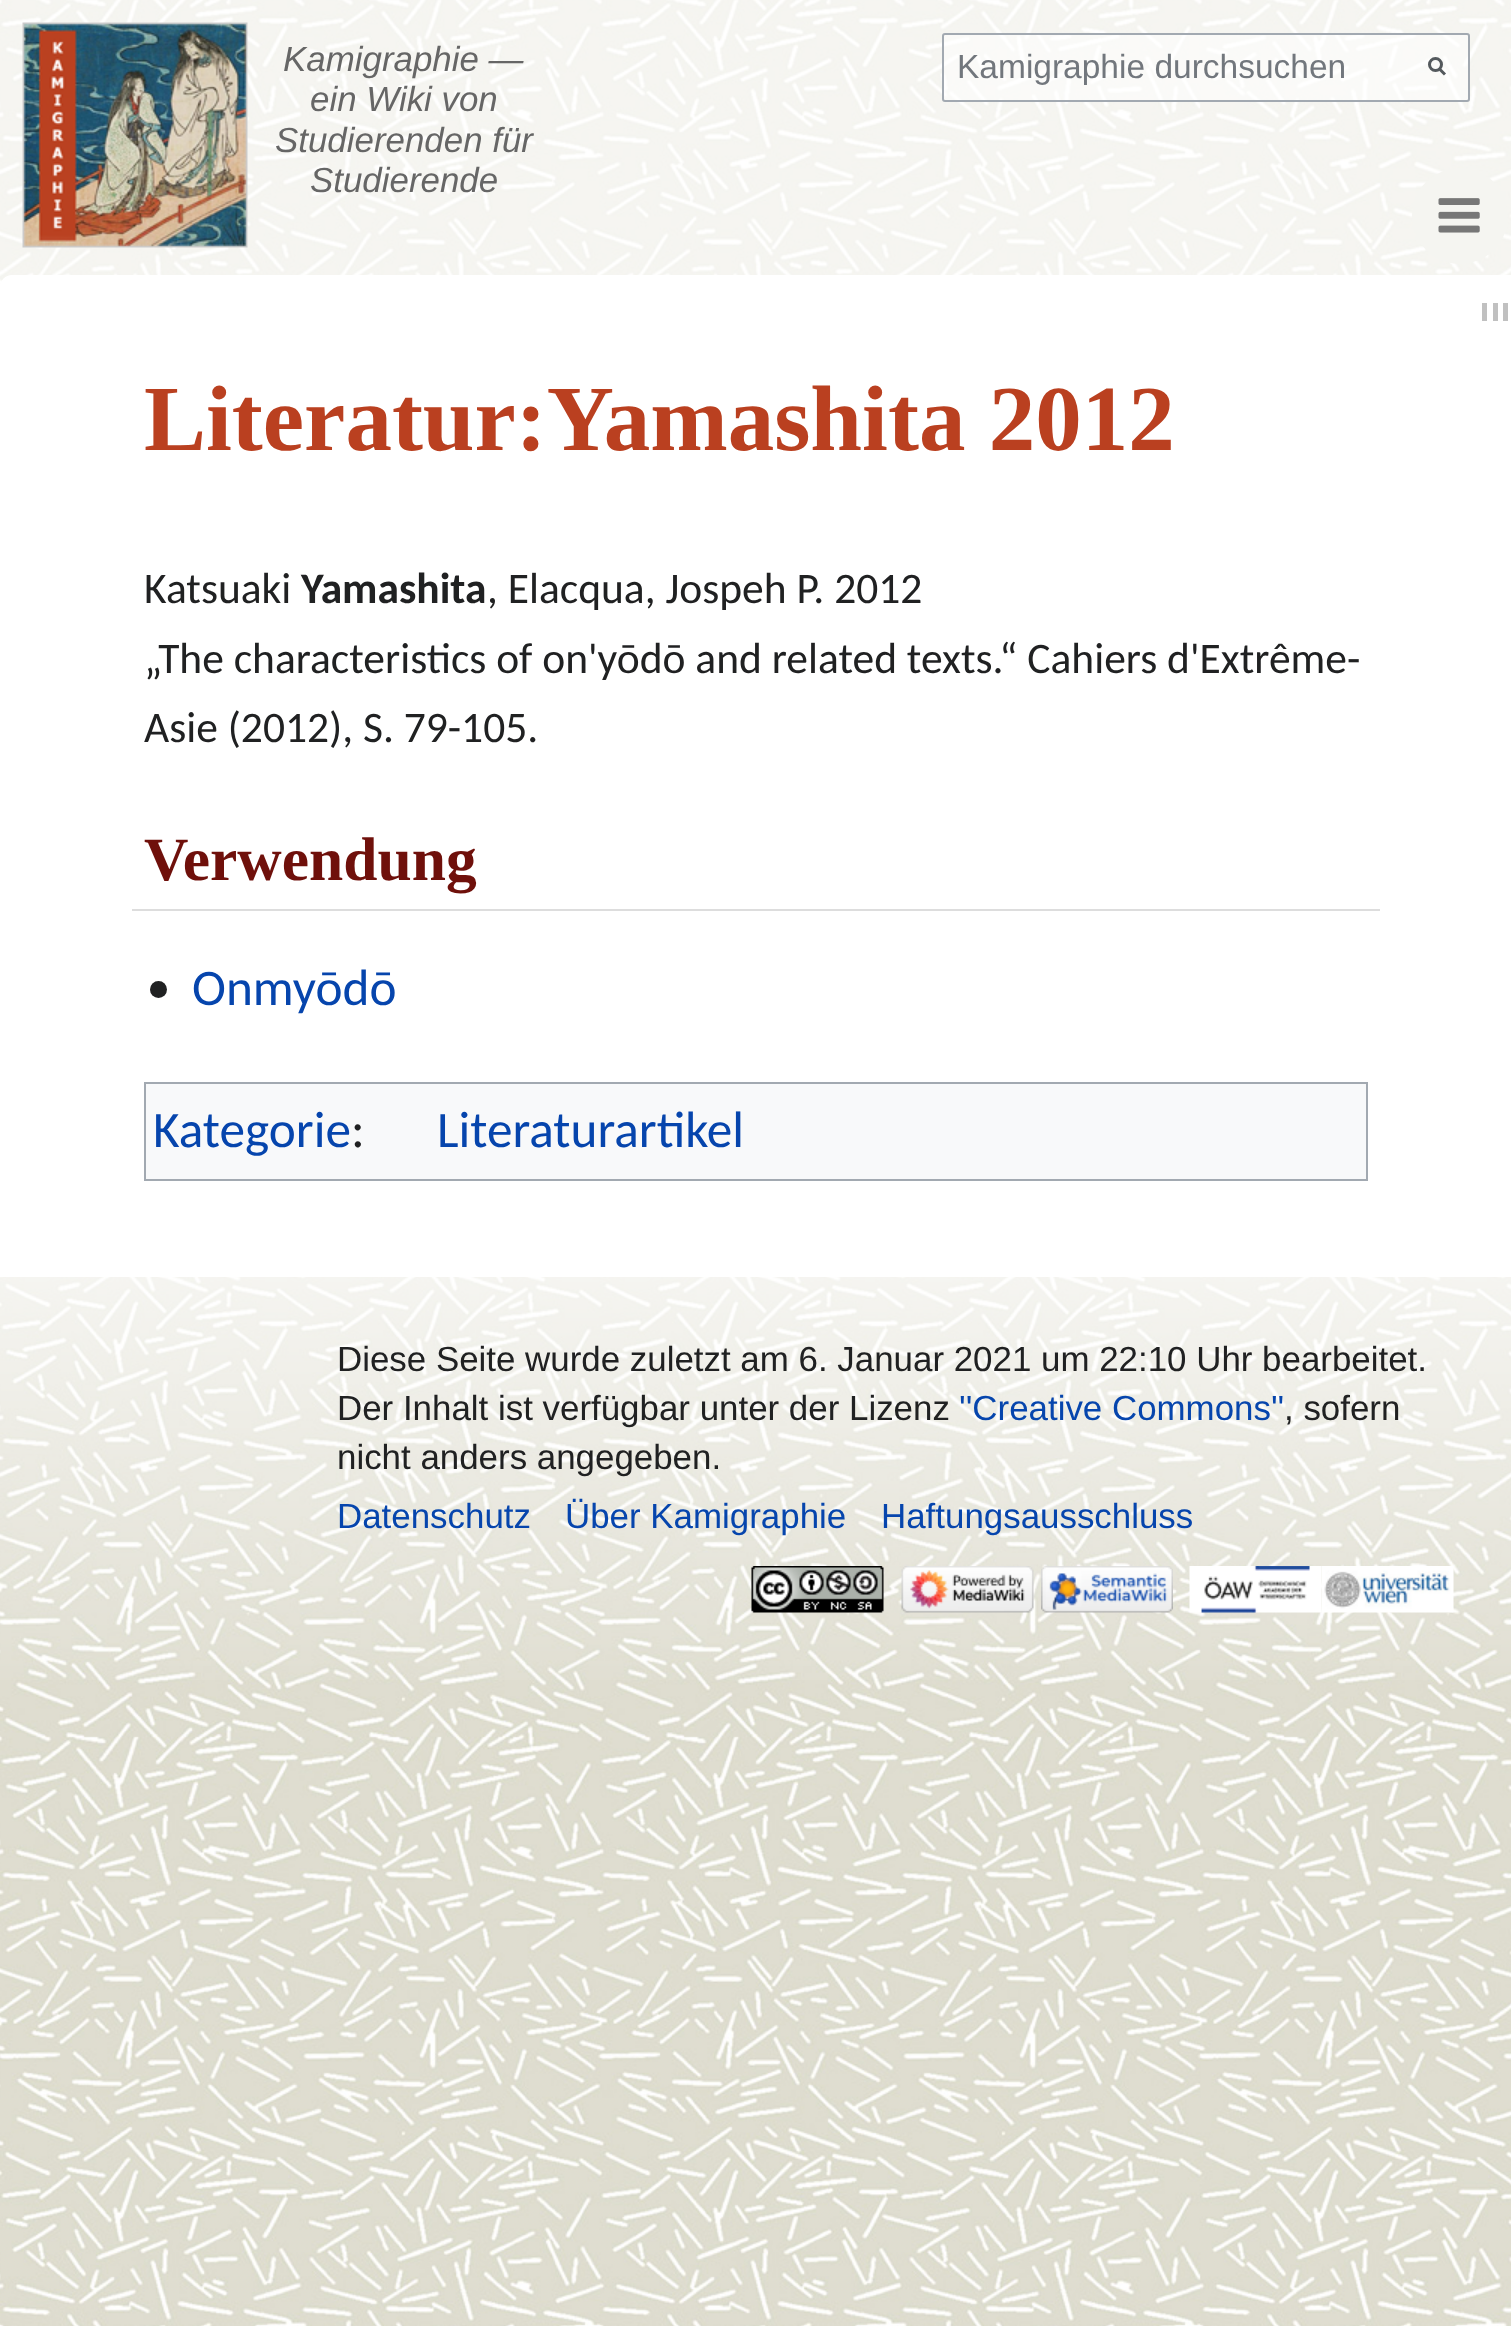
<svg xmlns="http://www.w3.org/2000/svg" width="1511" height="2326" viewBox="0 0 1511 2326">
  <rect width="100%" height="100%" fill="rgb(255,255,255)"/>
  <image x="0" y="0" width="1511" height="2326" href="pic1.png"/>
  <rect x="0" y="0" width="1511" height="72" fill="rgba(255,255,255,0.7)"/>
  <rect x="0" y="72" width="1511" height="215" fill="rgba(255,255,255,0.7)"/>
  <image x="22" y="22" width="226" height="226" href="pic2.png"/>
  <g font-family="Liberation Sans" font-size="34.9" font-style="italic" fill="rgb(102,102,102)">
    <text x="283" y="71">Kamigraphie —</text>
    <text x="310" y="111">ein Wiki von</text>
    <text x="275" y="152">Studierenden für</text>
    <text x="310" y="192">Studierende</text>
  </g>
  <circle cx="1460" cy="216" r="48" fill="rgb(245,245,241)"/>
  <image x="1438" y="198" width="42" height="35" href="pic3.png"/>
  <rect x="943" y="34" width="526" height="67" rx="2" fill="rgba(255,255,255,0.5)" stroke="rgb(162,169,177)" stroke-width="2"/>
  <text x="957" y="78" font-family="Liberation Sans" font-size="33.5" fill="rgb(114,119,125)">Kamigraphie durchsuchen</text>
  <path d="M1445 74.5L1439 68.5" fill="none" stroke="rgb(84,89,93)" stroke-width="3"/>
  <circle cx="1435.5" cy="64.5" r="6" fill="none" stroke="rgb(84,89,93)" stroke-width="3"/>
  <path d="M12 275H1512V552H0V287C0 280.5 5.5 275 12 275Z" fill="rgb(255,255,255)"/>
  <rect x="1493" y="303" width="5" height="18" fill="rgb(192,192,192)"/>
  <rect x="1482" y="303" width="5" height="18" fill="rgb(192,192,192)"/>
  <rect x="1503" y="303" width="5" height="18" fill="rgb(192,192,192)"/>
  <text x="144" y="450" font-family="Liberation Serif" font-size="93" font-weight="bold" fill="rgb(186,64,32)">Literatur:Yamashita 2012</text>
  <rect x="0" y="552" width="1511" height="725" fill="rgb(255,255,255)"/>
  <text x="144" y="603" font-family="Carlito" font-size="43.5" fill="rgb(32,33,34)">Katsuaki</text>
  <text x="301" y="603" font-family="Carlito" font-size="43.5" font-weight="bold" fill="rgb(32,33,34)">Yamashita</text>
  <g font-family="Carlito" font-size="43.5" fill="rgb(32,33,34)">
    <text x="487" y="603">, Elacqua, Jospeh P. 2012</text>
    <text>
      <tspan x="144" y="673">„The characteristics of on'yōdō and related texts.“ Cahiers d'Extrême-</tspan>
      <tspan x="144" y="742">Asie (2012), S. 79-105.</tspan>
    </text>
  </g>
  <rect x="132" y="909" width="1248" height="2" fill="rgb(221,221,221)"/>
  <text x="144" y="880" font-family="Liberation Serif" font-size="61.5" font-weight="bold" fill="rgb(111,16,11)">Verwendung</text>
  <circle cx="158.5" cy="989.5" r="8.5" fill="rgb(32,33,34)"/>
  <text x="192" y="1005" font-family="Carlito" font-size="51.25" fill="rgb(6,69,173)">Onmyōdō</text>
  <rect x="145" y="1083" width="1222" height="97" fill="rgb(248,249,250)" stroke="rgb(162,169,177)" stroke-width="2"/>
  <text x="153" y="1147" font-family="Carlito" font-size="51.25" fill="rgb(6,69,173)">Kategorie</text>
  <text x="351" y="1147" font-family="Carlito" font-size="51.25" fill="rgb(32,33,34)">:</text>
  <text x="437" y="1147" font-family="Carlito" font-size="51.25" fill="rgb(6,69,173)">Literaturartikel</text>
  <g font-family="Liberation Sans" font-size="34.9" fill="rgb(32,33,34)">
    <text>
      <tspan x="337" y="1371">Diese Seite wurde zuletzt am 6. Januar 2021 um 22:10 Uhr bearbeitet.</tspan>
      <tspan x="337" y="1420">Der Inhalt ist verfügbar unter der Lizenz</tspan>
    </text>
  </g>
  <text x="959" y="1420" font-family="Liberation Sans" font-size="34.9" fill="rgb(6,69,173)">''Creative Commons''</text>
  <g font-family="Liberation Sans" font-size="34.9" fill="rgb(32,33,34)">
    <text x="1284" y="1420">, sofern</text>
    <text x="337" y="1469">nicht anders angegeben.</text>
  </g>
  <g font-family="Liberation Sans" font-size="34.9" fill="rgb(6,69,173)">
    <text x="337" y="1528">Datenschutz</text>
    <text x="565" y="1528">Über Kamigraphie</text>
    <text x="881" y="1528">Haftungsausschluss</text>
  </g>
  <image x="751" y="1566" width="133" height="47" href="pic4.png"/>
  <image x="901" y="1566" width="133" height="47" href="pic5.png"/>
  <image x="1041" y="1566" width="132" height="47" href="pic6.png"/>
  <image x="1189" y="1566" width="133" height="47" href="pic7.png"/>
  <image x="1321" y="1566" width="133" height="47" href="pic8.png"/>
</svg>
